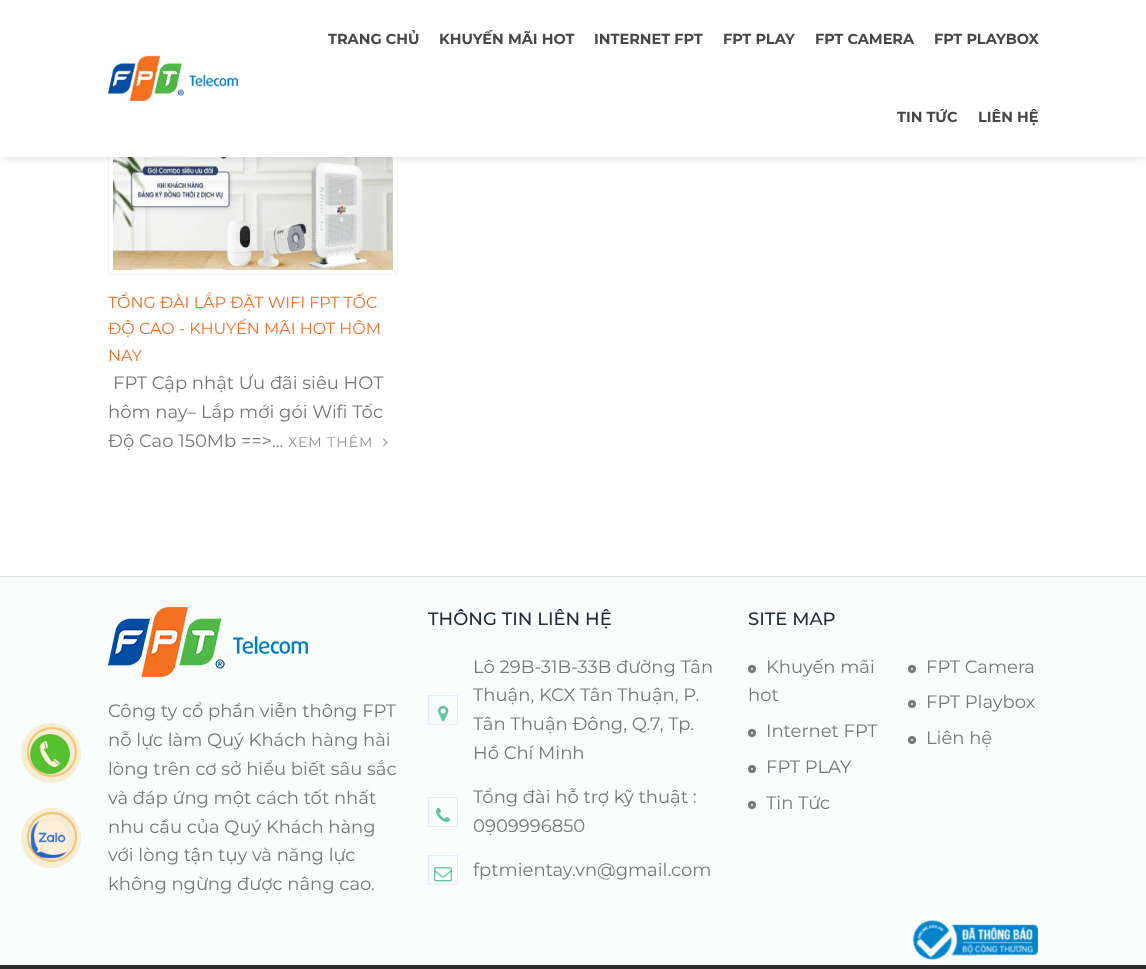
<svg xmlns="http://www.w3.org/2000/svg" width="1146" height="969" viewBox="0 0 1146 969">
  <rect width="100%" height="100%" fill="rgb(255,255,255)"/>
  <rect x="108.5" y="72.5" width="289" height="202" rx="3.5" fill="none" stroke="rgb(242,242,242)"/>
  <image x="113" y="157" width="280" height="113" href="pic2.png"/>
  <rect x="0" y="0" width="1146" height="157" fill="rgba(0,0,0,0.15)" filter="blur(5px)"/>
  <rect x="0" y="0" width="1146" height="157" fill="rgb(255,255,255)"/>
  <image x="108" y="55" width="130" height="47" href="pic1.png"/>
  <g font-family="Montserrat" font-size="14.5" font-weight="bold" fill="rgb(71,71,71)">
    <text x="328" y="44">TRANG CHỦ</text>
    <text x="439" y="44">KHUYẾN MÃI HOT</text>
    <text x="594" y="44">INTERNET FPT</text>
    <text x="723" y="44">FPT PLAY</text>
    <text x="815" y="44">FPT CAMERA</text>
    <text x="934" y="44">FPT PLAYBOX</text>
    <text x="897" y="122">TIN TỨC</text>
    <text x="978" y="122">LIÊN HỆ</text>
  </g>
  <g font-family="Montserrat" font-size="16" fill="rgb(240,110,40)">
    <text>
      <tspan x="108" y="308">TỔNG ĐÀI LẮP ĐẶT WIFI FPT TỐC</tspan>
      <tspan x="108" y="334">ĐỘ CAO - KHUYẾN MÃI HOT HÔM</tspan>
      <tspan x="108" y="361">NAY</tspan>
    </text>
  </g>
  <g font-family="Montserrat" font-size="18" fill="rgb(119,119,119)">
    <text x="113" y="389">FPT Cập nhật Ưu đãi siêu HOT</text>
    <text>
      <tspan x="108" y="418">hôm nay– Lắp mới gói Wifi Tốc</tspan>
      <tspan x="108" y="447">Độ Cao 150Mb ==&gt;...</tspan>
    </text>
  </g>
  <text x="288" y="447" font-family="Montserrat" font-size="14" letter-spacing="1" fill="rgb(151,151,151)">XEM THÊM</text>
  <image x="383" y="438" width="5" height="9" href="pic3.png"/>
  <rect x="0" y="577" width="1146" height="388" fill="rgb(249,253,252)"/>
  <image x="30" y="734" width="40" height="40" href="pic4.png"/>
  <circle cx="52" cy="752" r="24" fill="none" stroke="rgba(237,156,16,0.5)" stroke-width="2"/>
  <circle cx="51" cy="753" r="30" fill="rgba(237,156,16,0.17)"/>
  <image x="30" y="820" width="40" height="39" href="pic5.png"/>
  <circle cx="52" cy="837" r="24" fill="none" stroke="rgba(237,156,16,0.5)" stroke-width="2"/>
  <circle cx="51" cy="838" r="30" fill="rgba(237,156,16,0.17)"/>
  <rect x="0" y="576" width="1146" height="1" fill="rgb(224,227,226)"/>
  <image x="108" y="607" width="200" height="70" href="pic6.png"/>
  <g font-family="Montserrat" font-size="18" fill="rgb(119,119,119)">
    <text>
      <tspan x="108" y="717">Công ty cổ phần viễn thông FPT</tspan>
      <tspan x="108" y="746">nỗ lực làm Quý Khách hàng hài</tspan>
      <tspan x="108" y="775">lòng trên cơ sở hiểu biết sâu sắc</tspan>
      <tspan x="108" y="804">và đáp ứng một cách tốt nhất</tspan>
      <tspan x="108" y="833">nhu cầu của Quý Khách hàng</tspan>
      <tspan x="108" y="861">với lòng tận tụy và năng lực</tspan>
      <tspan x="108" y="890">không ngừng được nâng cao.</tspan>
    </text>
  </g>
  <text x="428" y="625" font-family="Montserrat" font-size="18" font-weight="500" fill="rgb(32,46,57)">THÔNG TIN LIÊN HỆ</text>
  <rect x="428.5" y="695.5" width="29" height="29" fill="none" stroke="rgb(225,238,255)"/>
  <image x="438" y="705" width="11" height="17" href="pic7.png"/>
  <g font-family="Montserrat" font-size="18" fill="rgb(119,119,119)">
    <text>
      <tspan x="473" y="673">Lô 29B-31B-33B đường Tân</tspan>
      <tspan x="473" y="701">Thuận, KCX Tân Thuận, P.</tspan>
      <tspan x="473" y="730">Tân Thuận Đông, Q.7, Tp.</tspan>
      <tspan x="473" y="759">Hồ Chí Minh</tspan>
    </text>
  </g>
  <rect x="428.5" y="797.5" width="29" height="29" fill="none" stroke="rgb(225,238,255)"/>
  <image x="436" y="807" width="15" height="15" href="pic8.png"/>
  <g font-family="Montserrat" font-size="18" fill="rgb(119,119,119)">
    <text>
      <tspan x="473" y="803">Tổng đài hỗ trợ kỹ thuật :</tspan>
      <tspan x="473" y="832">0̣909996850</tspan>
    </text>
  </g>
  <rect x="428.5" y="855.5" width="29" height="29" fill="none" stroke="rgb(225,238,255)"/>
  <image x="434" y="867" width="18" height="15" href="pic9.png"/>
  <text x="473" y="876" font-family="Montserrat" font-size="18" fill="rgb(119,119,119)">fptmientay.vn@gmail.com</text>
  <text x="748" y="625" font-family="Montserrat" font-size="18" font-weight="500" fill="rgb(32,46,57)">SITE MAP</text>
  <circle cx="752" cy="669" r="2.5" fill="none" stroke="rgb(119,119,119)" stroke-width="3"/>
  <g font-family="Montserrat" font-size="18" fill="rgb(119,119,119)">
    <text x="766" y="673">Khuyến mãi</text>
    <text x="748" y="701">hot</text>
  </g>
  <circle cx="752" cy="733" r="2.5" fill="none" stroke="rgb(119,119,119)" stroke-width="3"/>
  <text x="766" y="737" font-family="Montserrat" font-size="18" fill="rgb(119,119,119)">Internet FPT</text>
  <circle cx="752" cy="769" r="2.5" fill="none" stroke="rgb(119,119,119)" stroke-width="3"/>
  <text x="766" y="773" font-family="Montserrat" font-size="18" fill="rgb(119,119,119)">FPT PLAY</text>
  <circle cx="752" cy="805" r="2.5" fill="none" stroke="rgb(119,119,119)" stroke-width="3"/>
  <text x="766" y="809" font-family="Montserrat" font-size="18" fill="rgb(119,119,119)">Tin Tức</text>
  <circle cx="912" cy="669" r="2.5" fill="none" stroke="rgb(119,119,119)" stroke-width="3"/>
  <text x="926" y="673" font-family="Montserrat" font-size="18" fill="rgb(119,119,119)">FPT Camera</text>
  <circle cx="912" cy="704" r="2.5" fill="none" stroke="rgb(119,119,119)" stroke-width="3"/>
  <text x="926" y="708" font-family="Montserrat" font-size="18" fill="rgb(119,119,119)">FPT Playbox</text>
  <circle cx="912" cy="740" r="2.5" fill="none" stroke="rgb(119,119,119)" stroke-width="3"/>
  <text x="926" y="744" font-family="Montserrat" font-size="18" fill="rgb(119,119,119)">Liên hệ</text>
  <rect x="0" y="965" width="1146" height="4" fill="rgb(43,43,43)"/>
  <image x="908" y="915" width="130" height="51" href="pic10.png"/>
</svg>
